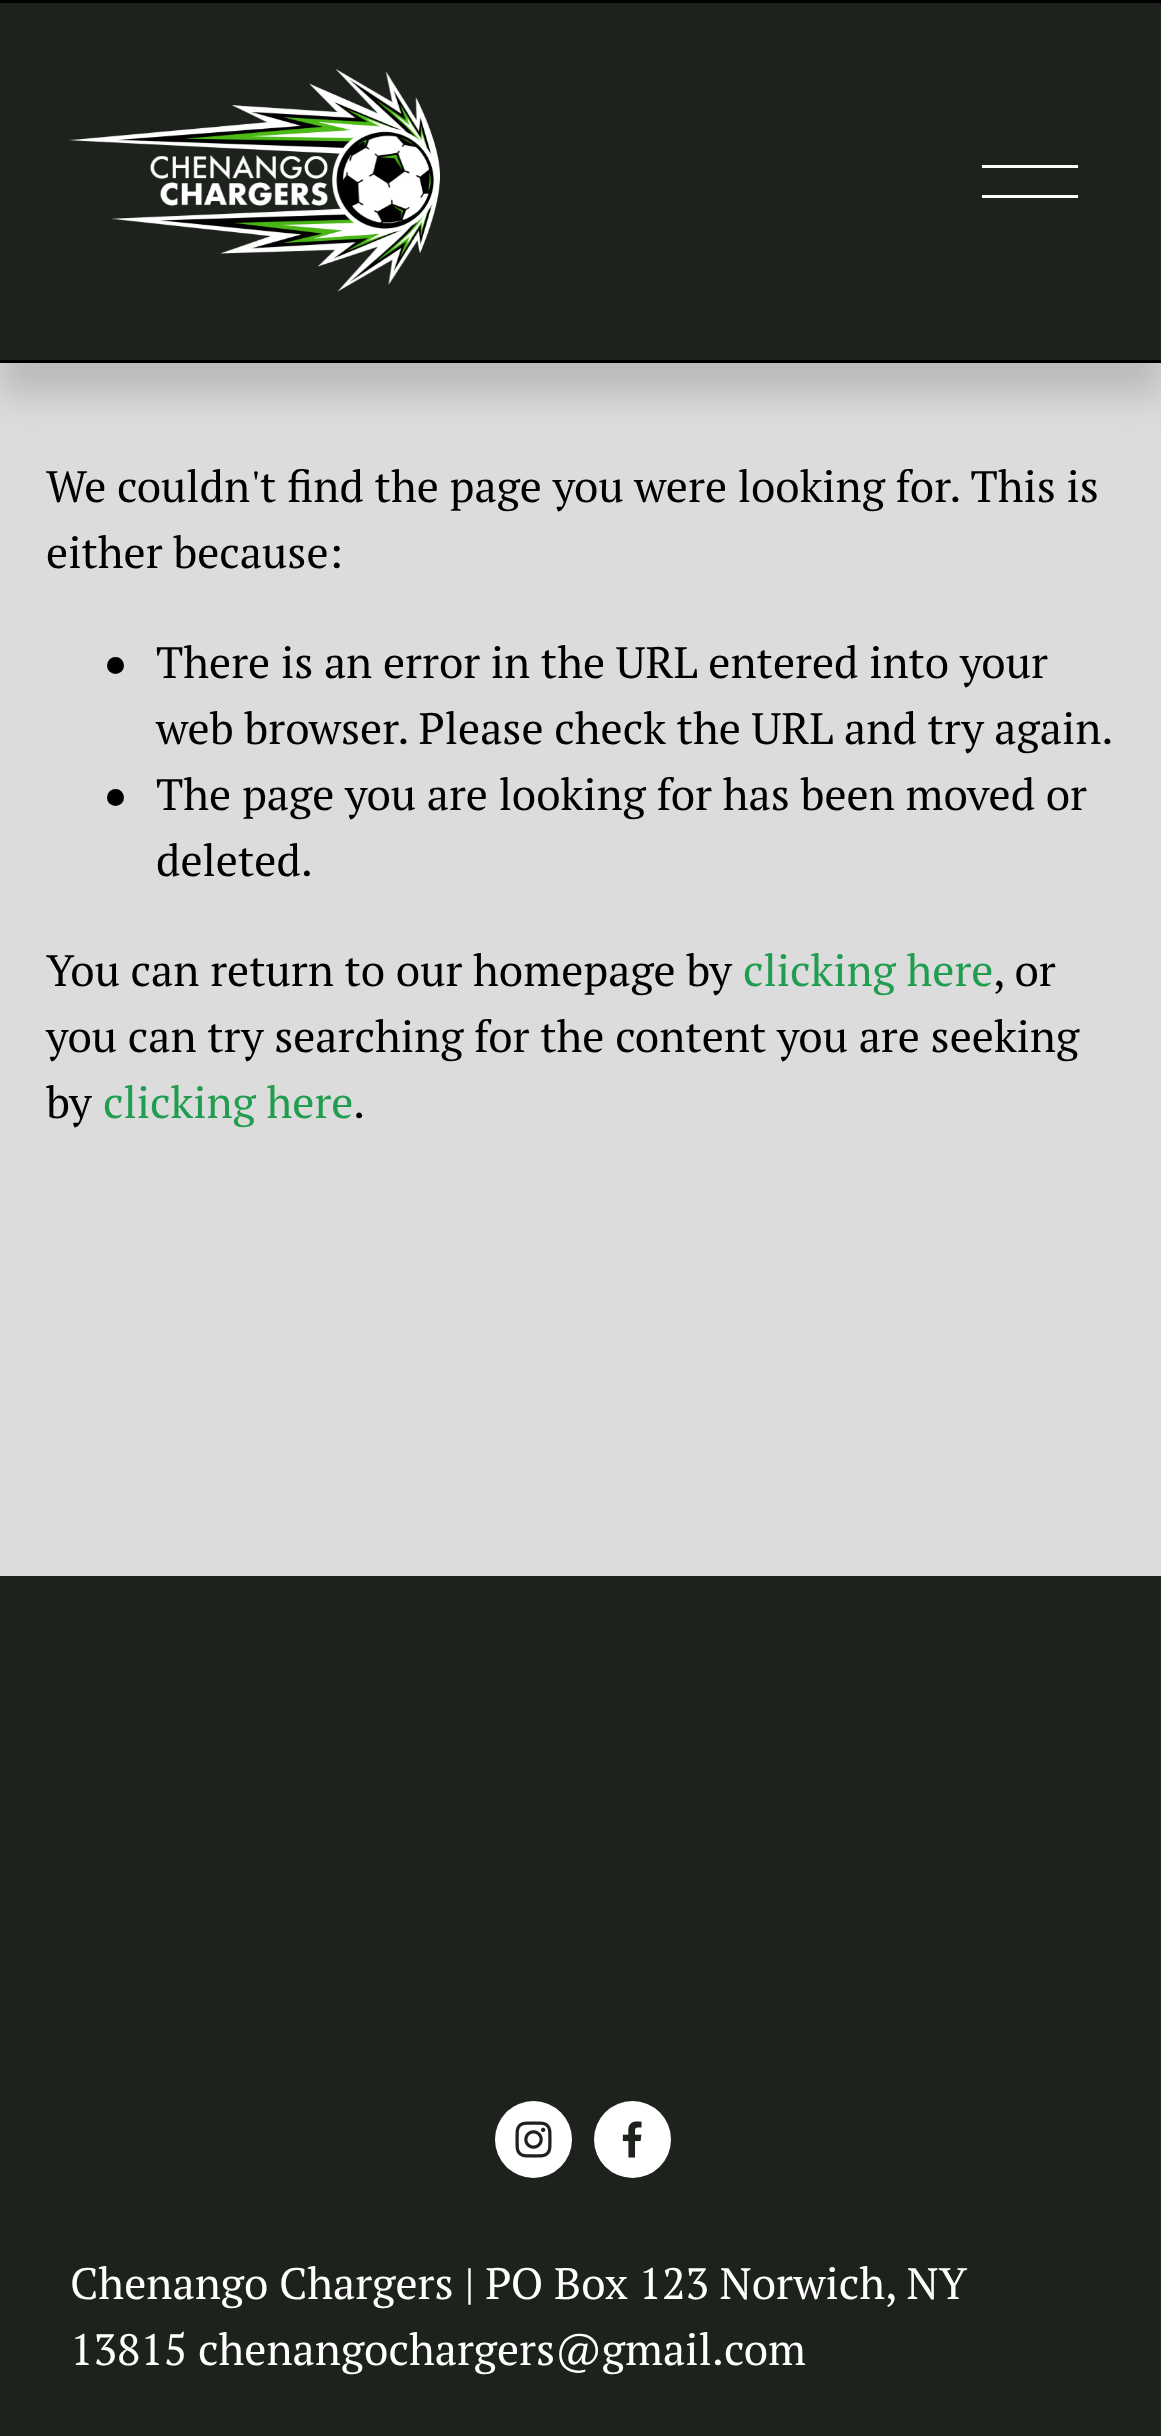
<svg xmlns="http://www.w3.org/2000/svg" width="1161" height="2436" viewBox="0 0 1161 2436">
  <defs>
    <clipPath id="clip1"><rect x="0" y="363" width="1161" height="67"/></clipPath>
  </defs>
  <rect width="100%" height="100%" fill="rgb(220,220,220)"/>
  <rect x="0" y="3" width="1161" height="357" fill="rgb(29,35,28)"/>
  <g clip-path="url(#clip1)">
    <rect x="0" y="33" width="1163" height="363" fill="rgb(187,187,187)" filter="blur(16.5px)"/>
  </g>
  <rect x="0" y="0" width="1161" height="3" fill="rgb(0,0,0)"/>
  <rect x="0" y="360" width="1161" height="3" fill="rgb(0,0,0)"/>
  <image x="69" y="69" width="371" height="223" href="pic1.png"/>
  <rect x="982" y="165" width="96" height="3" fill="rgb(255,255,255)"/>
  <rect x="982" y="195" width="96" height="3" fill="rgb(255,255,255)"/>
  <g font-family="PT Serif" font-size="44" fill="rgb(0,0,0)">
    <text>
      <tspan x="46" y="502">We couldn't find the page you were looking for. This is</tspan>
      <tspan x="46" y="568">either because:</tspan>
    </text>
  </g>
  <circle cx="115.5" cy="665.5" r="8.5" fill="rgb(0,0,0)"/>
  <g font-family="PT Serif" font-size="44" fill="rgb(0,0,0)">
    <text>
      <tspan x="156" y="678">There is an error in the URL entered into your</tspan>
      <tspan x="156" y="744">web browser. Please check the URL and try again.</tspan>
    </text>
  </g>
  <circle cx="115.5" cy="797.5" r="8.5" fill="rgb(0,0,0)"/>
  <g font-family="PT Serif" font-size="44" fill="rgb(0,0,0)">
    <text>
      <tspan x="156" y="810">The page you are looking for has been moved or</tspan>
      <tspan x="156" y="876">deleted.</tspan>
    </text>
    <text x="46" y="986">You can return to our homepage by</text>
  </g>
  <text x="743" y="986" font-family="PT Serif" font-size="44" fill="rgb(32,157,80)">clicking here</text>
  <g font-family="PT Serif" font-size="44" fill="rgb(0,0,0)">
    <text x="993" y="986">, or</text>
    <text>
      <tspan x="46" y="1052">you can try searching for the content you are seeking</tspan>
      <tspan x="46" y="1118">by</tspan>
    </text>
  </g>
  <text x="103" y="1118" font-family="PT Serif" font-size="44" fill="rgb(32,157,80)">clicking here</text>
  <text x="353" y="1118" font-family="PT Serif" font-size="44" fill="rgb(0,0,0)">.</text>
  <rect x="0" y="1576" width="1161" height="860" fill="rgb(29,35,28)"/>
  <circle cx="533.5" cy="2139.5" r="38.5" fill="rgb(255,255,255)"/>
  <image x="515" y="2121" width="37" height="37" href="pic2.png"/>
  <circle cx="632.5" cy="2139.5" r="38.5" fill="rgb(255,255,255)"/>
  <image x="622" y="2121" width="20" height="37" href="pic3.png"/>
  <g font-family="PT Serif" font-size="44" fill="rgb(255,255,255)">
    <text>
      <tspan x="70" y="2299">Chenango Chargers | PO Box 123 Norwich, NY</tspan>
      <tspan x="70" y="2365">13815 chenangochargers@gmail.com</tspan>
    </text>
  </g>
</svg>
